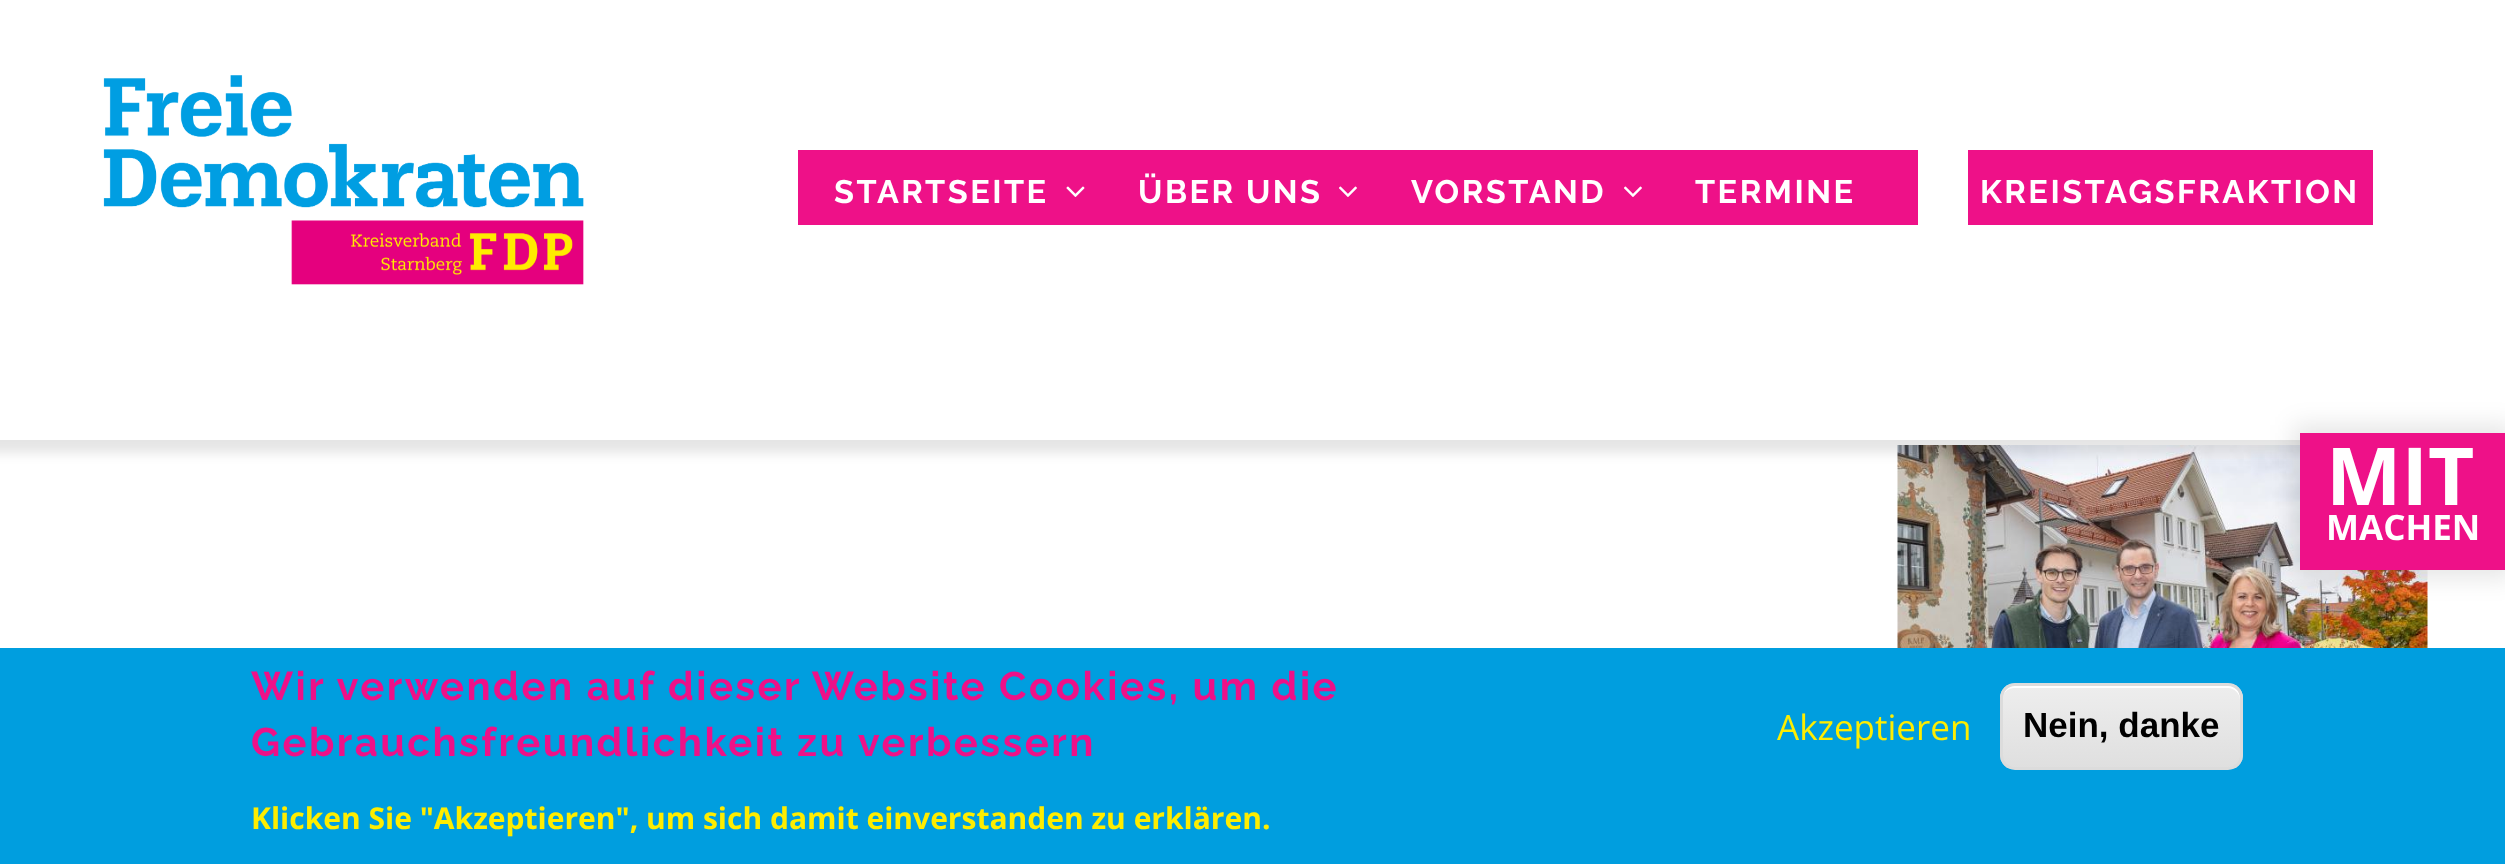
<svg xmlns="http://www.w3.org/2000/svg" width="2505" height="864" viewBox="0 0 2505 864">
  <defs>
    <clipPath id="clip1"><rect x="2000" y="683" width="243" height="87" rx="15"/></clipPath>
    <linearGradient id="g1" gradientUnits="userSpaceOnUse" x1="2121" y1="685" x2="2121" y2="768"><stop offset="0.05" stop-color="rgb(237,237,237)"/><stop offset="1" stop-color="rgb(223,223,223)"/></linearGradient>
  </defs>
  <rect width="100%" height="100%" fill="rgb(255,255,255)"/>
  <image x="1897" y="445" width="531" height="203" href="pic4.png"/>
  <rect x="-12" y="-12" width="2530" height="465" fill="rgba(0,0,0,0.1)" filter="blur(6px)"/>
  <rect x="0" y="0" width="2505" height="440" fill="rgb(255,255,255)"/>
  <image x="103" y="75" width="481" height="210" href="pic1.png"/>
  <rect x="798" y="150" width="1575" height="75" fill="rgb(238,17,136)"/>
  <text x="834" y="203" font-family="Raleway" font-size="32.5" font-weight="bold" letter-spacing="2.5" fill="rgb(255,255,255)">STARTSEITE</text>
  <image x="1066" y="186" width="19" height="11" href="pic2.png"/>
  <text x="1138" y="203" font-family="Raleway" font-size="32.5" font-weight="bold" letter-spacing="2.5" fill="rgb(255,255,255)">ÜBER UNS</text>
  <image x="1339" y="186" width="18" height="11" href="pic3.png"/>
  <text x="1411" y="203" font-family="Raleway" font-size="32.5" font-weight="bold" letter-spacing="2.5" fill="rgb(255,255,255)">VORSTAND</text>
  <image x="1624" y="186" width="18" height="11" href="pic3.png"/>
  <text x="1695" y="203" font-family="Raleway" font-size="32.5" font-weight="bold" letter-spacing="2.5" fill="rgb(255,255,255)">TERMINE</text>
  <rect x="1918" y="150" width="50" height="75" fill="rgb(255,255,255)"/>
  <text x="1980" y="203" font-family="Raleway" font-size="32.5" font-weight="bold" letter-spacing="2.5" fill="rgb(255,255,255)">KREISTAGSFRAKTION</text>
  <rect x="2293" y="425" width="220" height="153" fill="rgba(0,0,0,0.1)" filter="blur(12.5px)"/>
  <rect x="2300" y="433" width="205" height="137" fill="rgb(238,17,136)"/>
  <text x="2326" y="505" font-family="Open Sans" font-size="80" font-weight="bold" fill="rgb(255,255,255)">MIT</text>
  <text x="2326" y="540" font-family="Open Sans" font-size="35" font-weight="bold" fill="rgb(255,255,255)">MACHEN</text>
  <rect x="0" y="648" width="2505" height="216" fill="rgb(0,158,223)"/>
  <g font-family="Raleway" font-size="40" font-weight="bold" letter-spacing="2.5" fill="rgb(238,17,136)">
    <text>
      <tspan x="251" y="700">Wir verwenden auf dieser Website Cookies, um die</tspan>
      <tspan x="251" y="756">Gebrauchsfreundlichkeit zu verbessern</tspan>
    </text>
  </g>
  <text x="251" y="829" font-family="Open Sans" font-size="30" font-weight="bold" fill="rgb(254,237,0)">Klicken Sie "Akzeptieren", um sich damit einverstanden zu erklären.</text>
  <text x="1777" y="740" font-family="Open Sans" font-size="35" fill="rgb(254,237,0)">Akzeptieren</text>
  <g clip-path="url(#clip1)">
    <rect x="2000" y="685" width="243" height="83" fill="url(#g1)"/>
  </g>
  <path d="M2015 688H2228C2234 688 2240 693 2240 700V698C2240 691 2234 685 2227 685H2016C2010 685 2005 689 2004 694C2006 690 2010 688 2015 688Z" fill="rgb(255,255,255)"/>
  <rect x="2001.5" y="684.5" width="240" height="84" rx="13.5" fill="none" stroke="rgb(220,220,220)" stroke-width="3"/>
  <text x="2023" y="737" font-family="Liberation Sans" font-size="35" font-weight="bold" fill="rgb(0,0,0)">Nein, danke</text>
</svg>
